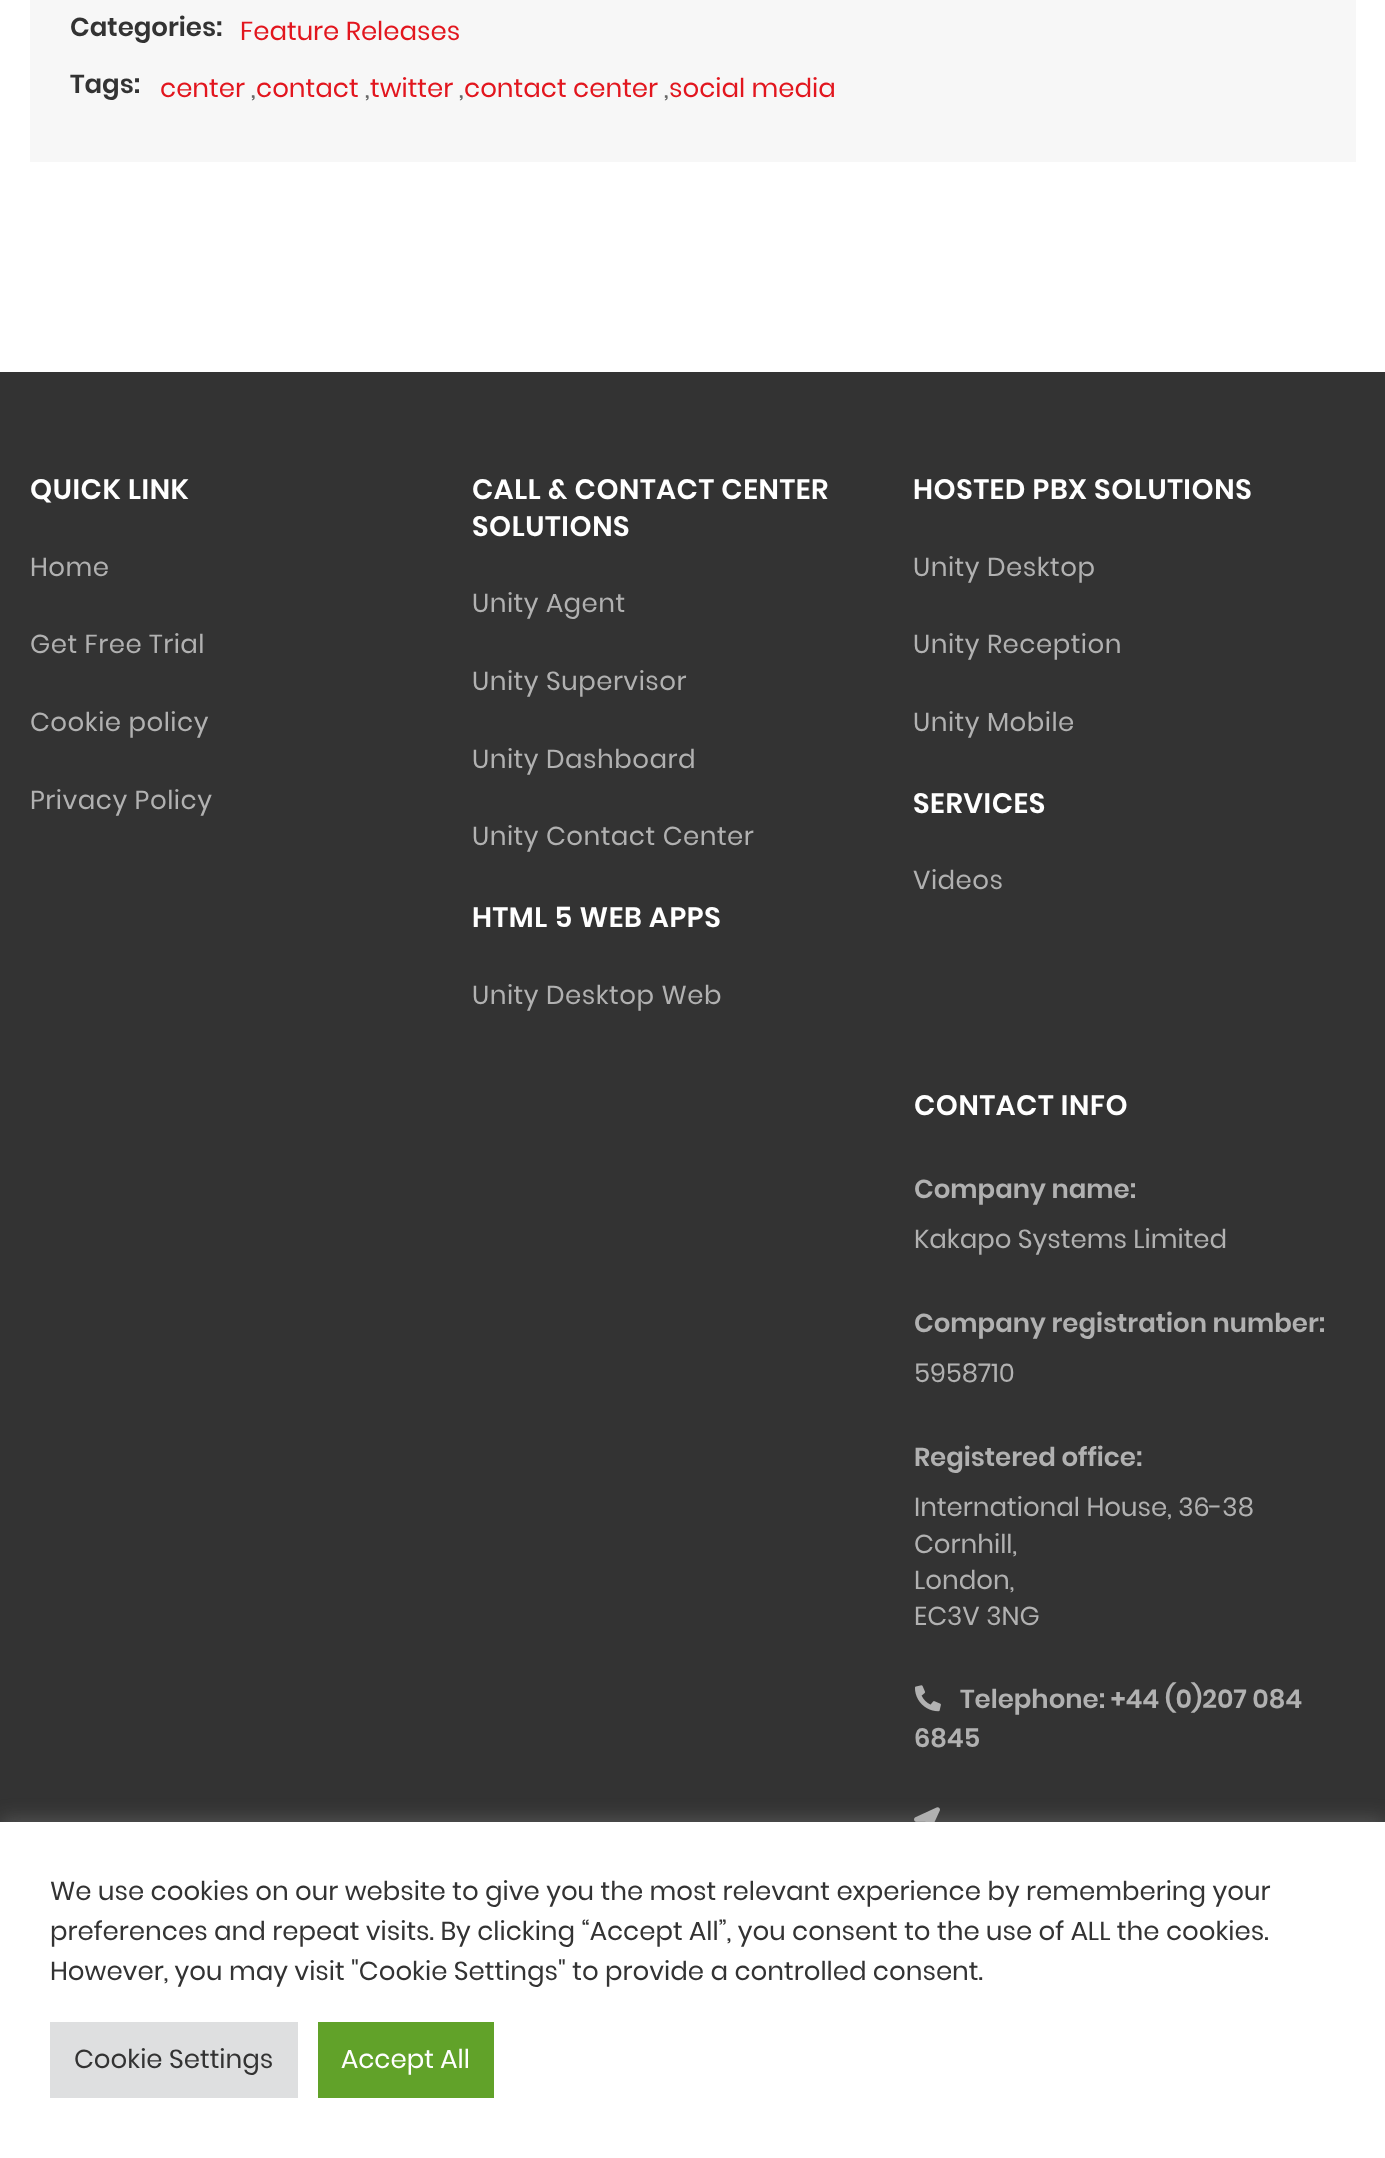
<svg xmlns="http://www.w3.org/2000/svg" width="1385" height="2158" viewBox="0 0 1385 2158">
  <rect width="100%" height="100%" fill="rgb(255,255,255)"/>
  <rect x="30" y="0" width="1326" height="162" fill="rgb(247,247,247)"/>
  <text x="70" y="36" font-family="Poppins" font-size="26" font-weight="600" fill="rgb(51,51,51)">Categories:</text>
  <text x="240" y="40" font-family="Poppins" font-size="26" fill="rgb(226,22,30)">Feature Releases</text>
  <text x="70" y="93" font-family="Poppins" font-size="26" font-weight="600" fill="rgb(51,51,51)">Tags:</text>
  <text x="160" y="97" font-family="Poppins" font-size="26" fill="rgb(226,22,30)">center</text>
  <text x="251" y="97" font-family="Poppins" font-size="26" fill="rgb(102,102,102)">,</text>
  <text x="256" y="97" font-family="Poppins" font-size="26" fill="rgb(226,22,30)">contact</text>
  <text x="365" y="97" font-family="Poppins" font-size="26" fill="rgb(102,102,102)">,</text>
  <text x="370" y="97" font-family="Poppins" font-size="26" fill="rgb(226,22,30)">twitter</text>
  <text x="459" y="97" font-family="Poppins" font-size="26" fill="rgb(102,102,102)">,</text>
  <text x="464" y="97" font-family="Poppins" font-size="26" fill="rgb(226,22,30)">contact center</text>
  <text x="664" y="97" font-family="Poppins" font-size="26" fill="rgb(102,102,102)">,</text>
  <text x="669" y="97" font-family="Poppins" font-size="26" fill="rgb(226,22,30)">social media</text>
  <rect x="0" y="372" width="1385" height="1450" fill="rgb(51,51,51)"/>
  <text x="30" y="499" font-family="Poppins" font-size="28" font-weight="600" letter-spacing="0.6" fill="rgb(255,255,255)">QUICK LINK</text>
  <g font-family="Poppins" font-size="26" letter-spacing="0.5" fill="rgb(177,177,177)">
    <text x="30" y="576">Home</text>
    <text x="30" y="653">Get Free Trial</text>
    <text x="30" y="731">Cookie policy</text>
    <text x="30" y="809">Privacy Policy</text>
  </g>
  <g font-family="Poppins" font-size="28" font-weight="600" letter-spacing="0.6" fill="rgb(255,255,255)">
    <text>
      <tspan x="472" y="499">CALL &amp; CONTACT CENTER</tspan>
      <tspan x="472" y="536">SOLUTIONS</tspan>
    </text>
  </g>
  <g font-family="Poppins" font-size="26" letter-spacing="0.5" fill="rgb(177,177,177)">
    <text x="472" y="612">Unity Agent</text>
    <text x="472" y="690">Unity Supervisor</text>
    <text x="472" y="768">Unity Dashboard</text>
    <text x="472" y="845">Unity Contact Center</text>
  </g>
  <text x="472" y="927" font-family="Poppins" font-size="28" font-weight="600" letter-spacing="0.6" fill="rgb(255,255,255)">HTML 5 WEB APPS</text>
  <text x="472" y="1004" font-family="Poppins" font-size="26" letter-spacing="0.5" fill="rgb(177,177,177)">Unity Desktop Web</text>
  <text x="913" y="499" font-family="Poppins" font-size="28" font-weight="600" letter-spacing="0.6" fill="rgb(255,255,255)">HOSTED PBX SOLUTIONS</text>
  <g font-family="Poppins" font-size="26" letter-spacing="0.5" fill="rgb(177,177,177)">
    <text x="913" y="576">Unity Desktop</text>
    <text x="913" y="653">Unity Reception</text>
    <text x="913" y="731">Unity Mobile</text>
  </g>
  <text x="913" y="813" font-family="Poppins" font-size="28" font-weight="600" letter-spacing="0.6" fill="rgb(255,255,255)">SERVICES</text>
  <text x="913" y="889" font-family="Poppins" font-size="26" letter-spacing="0.5" fill="rgb(177,177,177)">Videos</text>
  <text x="914" y="1115" font-family="Poppins" font-size="28" font-weight="600" letter-spacing="0.6" fill="rgb(255,255,255)">CONTACT INFO</text>
  <text x="914" y="1198" font-family="Poppins" font-size="26" font-weight="600" fill="rgb(177,177,177)">Company name:</text>
  <text x="914" y="1248" font-family="Poppins" font-size="26" fill="rgb(177,177,177)">Kakapo Systems Limited</text>
  <text x="914" y="1332" font-family="Poppins" font-size="26" font-weight="600" fill="rgb(177,177,177)">Company registration number:</text>
  <text x="914" y="1382" font-family="Poppins" font-size="26" fill="rgb(177,177,177)">5958710</text>
  <text x="914" y="1466" font-family="Poppins" font-size="26" font-weight="600" fill="rgb(177,177,177)">Registered office:</text>
  <g font-family="Poppins" font-size="26" fill="rgb(177,177,177)">
    <text>
      <tspan x="914" y="1516">International House, 36-38</tspan>
      <tspan x="914" y="1553">Cornhill,</tspan>
      <tspan x="914" y="1589">London,</tspan>
      <tspan x="914" y="1625">EC3V 3NG</tspan>
    </text>
  </g>
  <image x="915" y="1685" width="26" height="27" href="pic1.png"/>
  <g font-family="Poppins" font-size="26" font-weight="600" fill="rgb(177,177,177)">
    <text x="960" y="1708">Telephone: +44 (0)207 084</text>
    <text x="914" y="1747">6845</text>
  </g>
  <image x="914" y="1807" width="26" height="15" href="pic2.png"/>
  <rect x="0" y="1820" width="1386" height="336" fill="rgba(172,171,171,0.3)" filter="blur(10px)"/>
  <rect x="0" y="1822" width="1385" height="336" fill="rgb(255,255,255)"/>
  <g font-family="Poppins" font-size="26" fill="rgb(51,51,51)">
    <text>
      <tspan x="50" y="1900">We use cookies on our website to give you the most relevant experience by remembering your</tspan>
      <tspan x="50" y="1940">preferences and repeat visits. By clicking “Accept All”, you consent to the use of ALL the cookies.</tspan>
      <tspan x="50" y="1980">However, you may visit "Cookie Settings" to provide a controlled consent.</tspan>
    </text>
  </g>
  <rect x="50" y="2022" width="248" height="76" fill="rgb(222,223,224)"/>
  <text x="74" y="2068" font-family="Poppins" font-size="26" fill="rgb(51,51,51)">Cookie Settings</text>
  <rect x="318" y="2022" width="176" height="76" fill="rgb(97,162,41)"/>
  <text x="341" y="2068" font-family="Poppins" font-size="26" fill="rgb(255,255,255)">Accept All</text>
</svg>
